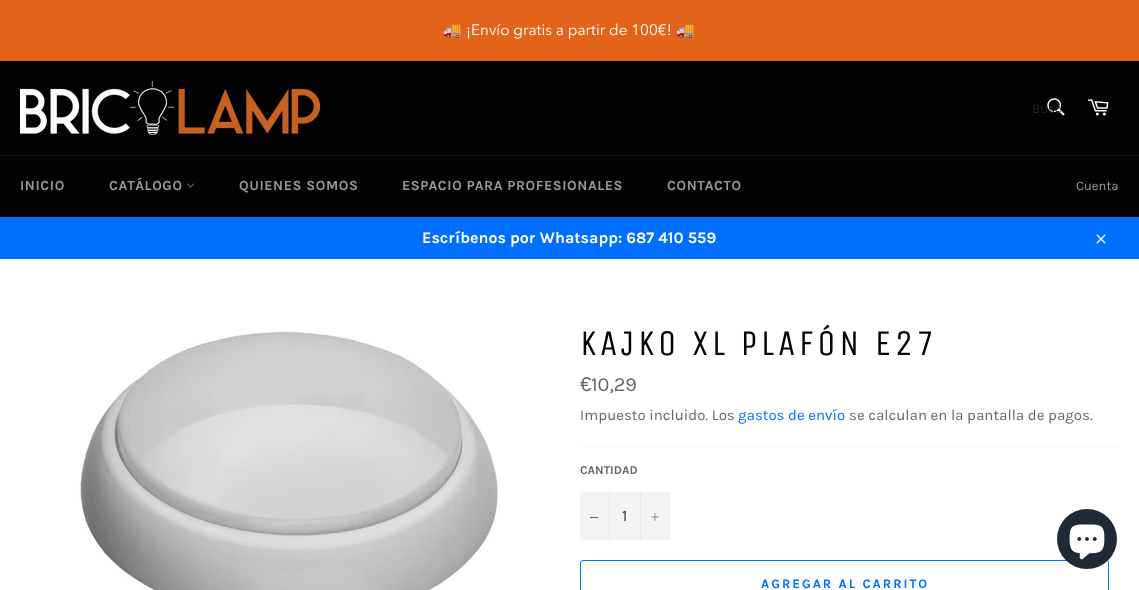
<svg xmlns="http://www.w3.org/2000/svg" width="1139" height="590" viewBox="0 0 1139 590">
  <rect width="100%" height="100%" fill="rgb(228,99,27)"/>
  <text x="443" y="35" font-family="Noto Color Emoji" font-size="15.25" fill="rgb(255,255,255)">🚚</text>
  <text x="466" y="35" font-family="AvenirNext" font-size="15.25" fill="rgb(255,255,255)">¡Envío gratis a partir de 100€!</text>
  <text x="676" y="35" font-family="Noto Color Emoji" font-size="15.25" fill="rgb(255,255,255)">🚚</text>
  <rect x="0" y="61" width="1139" height="156" fill="rgb(3,3,3)"/>
  <image x="20" y="81" width="300" height="54" href="pic1.png"/>
  <image x="1047" y="98" width="18" height="18" href="pic2.png"/>
  <text x="1032" y="113" font-family="Karla" font-size="13" fill="rgb(36,36,36)">Busc</text>
  <image x="1087" y="99" width="22" height="17" href="pic3.png"/>
  <rect x="0" y="155" width="1139" height="1" fill="rgb(16,16,16)"/>
  <g font-family="Karla" font-size="14" font-weight="bold" letter-spacing="0.6" fill="rgb(154,154,154)">
    <text x="20" y="190">INICIO</text>
    <text x="109" y="190">CATÁLOGO</text>
  </g>
  <image x="187" y="183" width="7" height="5" href="pic4.png"/>
  <g font-family="Karla" font-size="14" font-weight="bold" letter-spacing="0.6" fill="rgb(154,154,154)">
    <text x="239" y="190">QUIENES SOMOS</text>
    <text x="402" y="190">ESPACIO PARA PROFESIONALES</text>
    <text x="667" y="190">CONTACTO</text>
  </g>
  <text x="1076" y="190" font-family="Karla" font-size="13" fill="rgb(154,154,154)">Cuenta</text>
  <rect x="0" y="217" width="1139" height="42" fill="rgb(0,110,255)"/>
  <text x="422" y="243" font-family="Karla" font-size="16" font-weight="bold" fill="rgb(255,255,255)">Escríbenos por Whatsapp: 687 410 559</text>
  <image x="1096" y="234" width="10" height="10" href="pic5.png"/>
  <rect x="0" y="259" width="1139" height="331" fill="rgb(255,255,255)"/>
  <image x="78" y="331" width="420" height="259" href="pic6.png"/>
  <text x="580" y="355" font-family="Unica One" font-size="36" letter-spacing="3.6" fill="rgb(3,3,3)">KAJKO XL PLAFÓN E27</text>
  <text x="580" y="391" font-family="Liberation Sans" font-size="20" fill="rgb(102,102,102)">€</text>
  <text x="591" y="391" font-family="Karla" font-size="20" fill="rgb(102,102,102)">10,29</text>
  <text x="580" y="420" font-family="Karla" font-size="15" fill="rgb(102,102,102)">Impuesto incluido. Los</text>
  <text x="738" y="420" font-family="Karla" font-size="15" fill="rgb(0,110,255)">gastos de envío</text>
  <text x="849" y="420" font-family="Karla" font-size="15" fill="rgb(102,102,102)">se calculan en la pantalla de pagos.</text>
  <rect x="580" y="446" width="539" height="1" fill="rgb(247,247,247)"/>
  <text x="580" y="474" font-family="Karla" font-size="12" font-weight="bold" fill="rgb(102,102,102)">CANTIDAD</text>
  <rect x="580" y="492" width="90" height="48" fill="rgb(244,244,244)"/>
  <rect x="609" y="492" width="1" height="48" fill="rgb(231,231,231)"/>
  <rect x="590" y="517" width="8" height="1" fill="rgb(102,102,102)"/>
  <text x="622" y="521" font-family="Karla" font-size="16" fill="rgb(51,51,51)">1</text>
  <rect x="640" y="492" width="1" height="48" fill="rgb(231,231,231)"/>
  <image x="651" y="513" width="8" height="8" href="pic7.png"/>
  <rect x="580.5" y="560.5" width="528" height="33" rx="2.5" fill="none" stroke="rgb(0,110,255)"/>
  <text x="761" y="588" font-family="Karla" font-size="13" font-weight="bold" letter-spacing="2" fill="rgb(0,110,255)">AGREGAR AL CARRITO</text>
  <circle cx="1087" cy="539" r="30" fill="rgb(32,42,54)"/>
  <image x="1069" y="524" width="36" height="36" href="pic8.png"/>
</svg>
